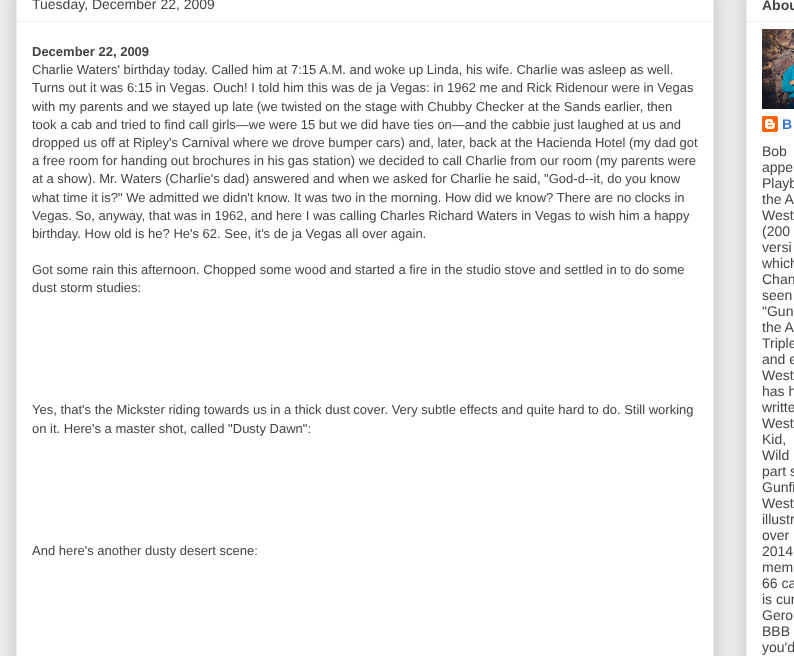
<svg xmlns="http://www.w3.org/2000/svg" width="794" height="656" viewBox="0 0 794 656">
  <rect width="100%" height="100%" fill="rgb(238,238,238)"/>
  <rect x="16" y="-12" width="698" height="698" fill="rgba(0,0,0,0.2)" filter="blur(10px)"/>
  <rect x="16.5" y="-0.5" width="697" height="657" fill="rgb(255,255,255)" stroke="rgb(238,238,238)"/>
  <text x="32" y="9" font-family="Liberation Sans" font-size="14" fill="rgb(68,68,68)">Tuesday, December 22, 2009</text>
  <rect x="17" y="21" width="696" height="1" fill="rgb(238,238,238)"/>
  <text x="32" y="56" font-family="Liberation Sans" font-size="13" font-weight="bold" fill="rgb(68,68,68)">December 22, 2009</text>
  <g font-family="Liberation Sans" font-size="13" fill="rgb(68,68,68)">
    <text>
      <tspan x="32" y="74">Charlie Waters' birthday today. Called him at 7:15 A.M. and woke up Linda, his wife. Charlie was asleep as well.</tspan>
      <tspan x="32" y="92">Turns out it was 6:15 in Vegas. Ouch! I told him this was de ja Vegas: in 1962 me and Rick Ridenour were in Vegas</tspan>
      <tspan x="32" y="111">with my parents and we stayed up late (we twisted on the stage with Chubby Checker at the Sands earlier, then</tspan>
      <tspan x="32" y="129">took a cab and tried to find call girls—we were 15 but we did have ties on—and the cabbie just laughed at us and</tspan>
      <tspan x="32" y="147">dropped us off at Ripley's Carnival where we drove bumper cars) and, later, back at the Hacienda Hotel (my dad got</tspan>
      <tspan x="32" y="165">a free room for handing out brochures in his gas station) we decided to call Charlie from our room (my parents were</tspan>
      <tspan x="32" y="183">at a show). Mr. Waters (Charlie's dad) answered and when we asked for Charlie he said, "God-d--it, do you know</tspan>
      <tspan x="32" y="202">what time it is?" We admitted we didn't know. It was two in the morning. How did we know? There are no clocks in</tspan>
      <tspan x="32" y="220">Vegas. So, anyway, that was in 1962, and here I was calling Charles Richard Waters in Vegas to wish him a happy</tspan>
      <tspan x="32" y="238">birthday. How old is he? He's 62. See, it's de ja Vegas all over again.</tspan>
    </text>
    <text>
      <tspan x="32" y="274">Got some rain this afternoon. Chopped some wood and started a fire in the studio stove and settled in to do some</tspan>
      <tspan x="32" y="292">dust storm studies:</tspan>
    </text>
    <text>
      <tspan x="32" y="414">Yes, that's the Mickster riding towards us in a thick dust cover. Very subtle effects and quite hard to do. Still working</tspan>
      <tspan x="32" y="433">on it. Here's a master shot, called "Dusty Dawn":</tspan>
    </text>
    <text x="32" y="555">And here's another dusty desert scene:</text>
  </g>
  <rect x="746" y="-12" width="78" height="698" fill="rgba(0,0,0,0.2)" filter="blur(10px)"/>
  <rect x="746.5" y="-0.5" width="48" height="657" fill="rgb(255,255,255)" stroke="rgb(238,238,238)"/>
  <text x="762" y="10" font-family="Liberation Sans" font-size="14" font-weight="bold" fill="rgb(68,68,68)">Abou</text>
  <rect x="747" y="21" width="47" height="1" fill="rgb(238,238,238)"/>
  <image x="762" y="29" width="32" height="80" href="pic1.png"/>
  <image x="762" y="116" width="16" height="16" href="pic2.png"/>
  <text x="782" y="129" font-family="Liberation Sans" font-size="14" font-weight="bold" fill="rgb(55,120,205)">B</text>
  <g font-family="Liberation Sans" font-size="14" fill="rgb(68,68,68)">
    <text>
      <tspan x="762" y="156">Bob</tspan>
      <tspan x="762" y="172">appe</tspan>
      <tspan x="762" y="188">Playb</tspan>
      <tspan x="762" y="204">the A</tspan>
      <tspan x="762" y="220">West</tspan>
      <tspan x="762" y="236">(200</tspan>
      <tspan x="762" y="252">versi</tspan>
      <tspan x="762" y="268">which</tspan>
      <tspan x="762" y="284">Chan</tspan>
      <tspan x="762" y="300">seen</tspan>
      <tspan x="762" y="316">"Gun</tspan>
      <tspan x="762" y="332">the A</tspan>
      <tspan x="762" y="348">Triple</tspan>
      <tspan x="762" y="364">and e</tspan>
      <tspan x="762" y="380">West</tspan>
      <tspan x="762" y="396">has h</tspan>
      <tspan x="762" y="412">writte</tspan>
      <tspan x="762" y="428">West</tspan>
      <tspan x="762" y="444">Kid,</tspan>
      <tspan x="762" y="460">Wild</tspan>
      <tspan x="762" y="476">part s</tspan>
      <tspan x="762" y="492">Gunfi</tspan>
      <tspan x="762" y="508">West</tspan>
      <tspan x="762" y="524">illustr</tspan>
      <tspan x="762" y="540">over</tspan>
      <tspan x="762" y="556">2014</tspan>
      <tspan x="762" y="572">mem</tspan>
      <tspan x="762" y="588">66 ca</tspan>
      <tspan x="762" y="604">is cur</tspan>
      <tspan x="762" y="620">Gero</tspan>
      <tspan x="762" y="636">BBB</tspan>
      <tspan x="762" y="652">you'd</tspan>
    </text>
  </g>
</svg>
